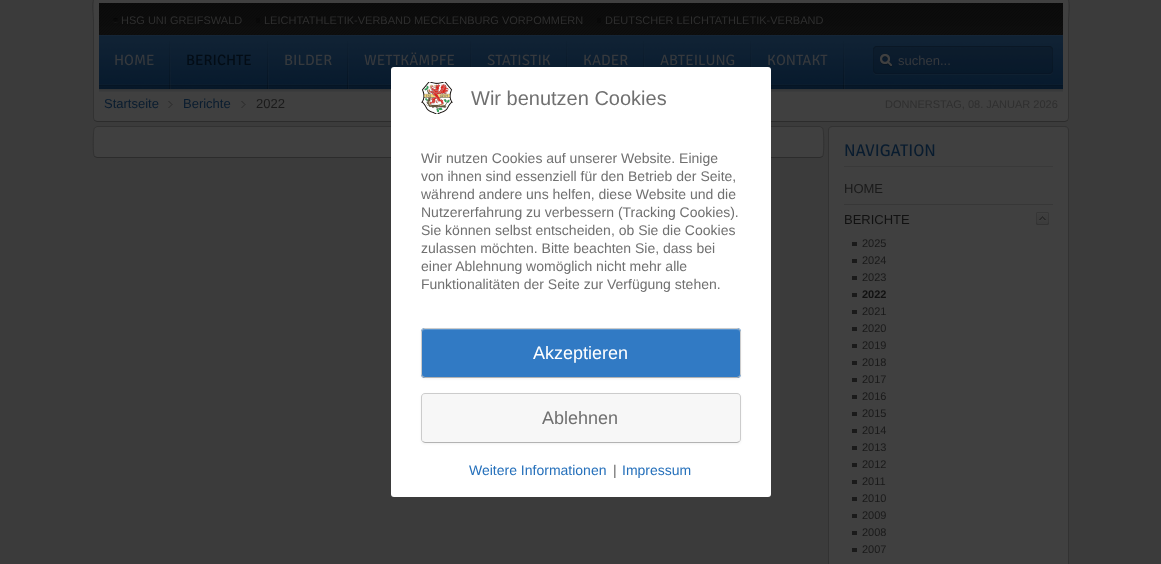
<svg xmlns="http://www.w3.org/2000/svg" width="1161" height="564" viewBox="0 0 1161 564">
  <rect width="100%" height="100%" fill="rgb(59,59,59)"/>
  <rect x="94" y="-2" width="974" height="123" rx="3" fill="rgb(64,64,64)"/>
  <path d="M1067.5 120.5L1065 121.5H97L94.5 120.5" fill="none" stroke="rgba(0,0,0,0.25)"/>
  <path d="M94.5 120.5L93.5 118V20.5C93.5 13.5 90-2.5 97-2.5H1065C1072-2.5 1068.5 13.5 1068.5 20.5V118L1067.5 120.5" fill="none" stroke="rgba(0,0,0,0.15)"/>
  <image x="99" y="3" width="964" height="32" href="pic1.png"/>
  <image x="113" y="18" width="5" height="5" href="pic2.png"/>
  <text x="121" y="24" font-family="Liberation Sans" font-size="11" fill="rgb(47,47,47)">HSG UNI GREIFSWALD</text>
  <rect x="256" y="18" width="4" height="5" fill="rgba(0,0,0,0.2)"/>
  <text x="264" y="24" font-family="Liberation Sans" font-size="11" fill="rgb(47,47,47)">LEICHTATHLETIK-VERBAND MECKLENBURG VORPOMMERN</text>
  <rect x="597" y="18" width="4" height="5" fill="rgba(0,0,0,0.2)"/>
  <text x="605" y="24" font-family="Liberation Sans" font-size="11" fill="rgb(47,47,47)">DEUTSCHER LEICHTATHLETIK-VERBAND</text>
  <image x="99" y="35" width="964" height="57" href="pic3.png"/>
  <image x="169" y="41" width="2" height="48" href="pic4.png"/>
  <text x="114" y="65" font-family="Signika Negative" font-size="15" fill="rgb(54,57,61)">HOME</text>
  <image x="267" y="41" width="2" height="48" href="pic5.png"/>
  <text x="186" y="65" font-family="Signika Negative" font-size="15" fill="rgb(3,12,21)">BERICHTE</text>
  <image x="347" y="41" width="2" height="48" href="pic6.png"/>
  <text x="284" y="65" font-family="Signika Negative" font-size="15" fill="rgb(54,57,61)">BILDER</text>
  <image x="470" y="41" width="2" height="26" href="pic7.png"/>
  <text x="364" y="65" font-family="Signika Negative" font-size="15" fill="rgb(54,57,61)">WETTKÄMPFE</text>
  <image x="566" y="41" width="2" height="26" href="pic8.png"/>
  <text x="487" y="65" font-family="Signika Negative" font-size="15" fill="rgb(54,57,61)">STATISTIK</text>
  <image x="643" y="41" width="2" height="26" href="pic9.png"/>
  <text x="583" y="65" font-family="Signika Negative" font-size="15" fill="rgb(54,57,61)">KADER</text>
  <image x="750" y="41" width="2" height="26" href="pic10.png"/>
  <text x="660" y="65" font-family="Signika Negative" font-size="15" fill="rgb(54,57,61)">ABTEILUNG</text>
  <image x="843" y="41" width="2" height="48" href="pic11.png"/>
  <text x="767" y="65" font-family="Signika Negative" font-size="15" fill="rgb(54,57,61)">KONTAKT</text>
  <image x="873" y="46" width="180" height="29" href="pic12.png"/>
  <text x="898" y="65" font-family="Liberation Sans" font-size="13" fill="rgb(54,57,61)">suchen...</text>
  <image x="168" y="101" width="5" height="7" href="pic13.png"/>
  <text x="104" y="108" font-family="Liberation Sans" font-size="13" fill="rgb(9,28,47)">Startseite</text>
  <image x="241" y="101" width="5" height="7" href="pic13.png"/>
  <text x="183" y="108" font-family="Liberation Sans" font-size="13" fill="rgb(9,28,47)">Berichte</text>
  <text x="256" y="108" font-family="Liberation Sans" font-size="13" fill="rgb(26,26,26)">2022</text>
  <text x="885" y="108" font-family="Liberation Sans" font-size="11" fill="rgb(47,47,47)">DONNERSTAG, 08. JANUAR 2026</text>
  <rect x="94" y="127" width="729" height="30" rx="3" fill="rgb(64,64,64)"/>
  <path d="M822.5 156.5L820 157.5H97L94.5 156.5" fill="none" stroke="rgba(0,0,0,0.25)"/>
  <path d="M94.5 156.5C92.5 154.5 93 129.5 94.5 128L97 126.5H820L822.5 128C824 129.5 824.5 154.5 822.5 156.5" fill="none" stroke="rgba(0,0,0,0.15)"/>
  <rect x="829" y="127" width="239" height="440" rx="3" fill="rgb(64,64,64)"/>
  <path d="M829.5 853.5C829 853 828.5 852 828.5 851V130C828.5 129 829 128 829.5 127.5C830 127 831 126.5 832 126.5H1065C1066 126.5 1067 127 1067.5 127.5C1068 128 1068.5 129 1068.5 130V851C1068.5 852 1068 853 1067.5 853.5" fill="none" stroke="rgb(50,50,50)"/>
  <rect x="844" y="166" width="209" height="1" fill="rgb(57,57,57)"/>
  <text x="844" y="156" font-family="Signika Negative" font-size="17" fill="rgb(9,28,47)">NAVIGATION</text>
  <text x="844" y="193" font-family="Liberation Sans" font-size="13" fill="rgb(26,26,26)">HOME</text>
  <rect x="844" y="204" width="209" height="1" fill="rgb(55,55,55)"/>
  <image x="1036" y="212" width="13" height="13" href="pic14.png"/>
  <text x="844" y="224" font-family="Liberation Sans" font-size="13" fill="rgb(17,17,17)">BERICHTE</text>
  <rect x="852" y="242" width="5" height="4" fill="rgb(26,26,26)"/>
  <text x="862" y="247" font-family="Liberation Sans" font-size="11" fill="rgb(26,26,26)">2025</text>
  <rect x="852" y="259" width="5" height="4" fill="rgb(26,26,26)"/>
  <text x="862" y="264" font-family="Liberation Sans" font-size="11" fill="rgb(26,26,26)">2024</text>
  <rect x="852" y="276" width="5" height="4" fill="rgb(26,26,26)"/>
  <text x="862" y="281" font-family="Liberation Sans" font-size="11" fill="rgb(26,26,26)">2023</text>
  <rect x="852" y="293" width="5" height="4" fill="rgb(26,26,26)"/>
  <text x="862" y="298" font-family="Liberation Sans" font-size="11" font-weight="bold" fill="rgb(17,17,17)">2022</text>
  <rect x="852" y="310" width="5" height="4" fill="rgb(26,26,26)"/>
  <text x="862" y="315" font-family="Liberation Sans" font-size="11" fill="rgb(26,26,26)">2021</text>
  <rect x="852" y="327" width="5" height="4" fill="rgb(26,26,26)"/>
  <text x="862" y="332" font-family="Liberation Sans" font-size="11" fill="rgb(26,26,26)">2020</text>
  <rect x="852" y="344" width="5" height="4" fill="rgb(26,26,26)"/>
  <text x="862" y="349" font-family="Liberation Sans" font-size="11" fill="rgb(26,26,26)">2019</text>
  <rect x="852" y="361" width="5" height="4" fill="rgb(26,26,26)"/>
  <text x="862" y="366" font-family="Liberation Sans" font-size="11" fill="rgb(26,26,26)">2018</text>
  <rect x="852" y="378" width="5" height="4" fill="rgb(26,26,26)"/>
  <text x="862" y="383" font-family="Liberation Sans" font-size="11" fill="rgb(26,26,26)">2017</text>
  <rect x="852" y="395" width="5" height="4" fill="rgb(26,26,26)"/>
  <text x="862" y="400" font-family="Liberation Sans" font-size="11" fill="rgb(26,26,26)">2016</text>
  <rect x="852" y="412" width="5" height="4" fill="rgb(26,26,26)"/>
  <text x="862" y="417" font-family="Liberation Sans" font-size="11" fill="rgb(26,26,26)">2015</text>
  <rect x="852" y="429" width="5" height="4" fill="rgb(26,26,26)"/>
  <text x="862" y="434" font-family="Liberation Sans" font-size="11" fill="rgb(26,26,26)">2014</text>
  <rect x="852" y="446" width="5" height="4" fill="rgb(26,26,26)"/>
  <text x="862" y="451" font-family="Liberation Sans" font-size="11" fill="rgb(26,26,26)">2013</text>
  <rect x="852" y="463" width="5" height="4" fill="rgb(26,26,26)"/>
  <text x="862" y="468" font-family="Liberation Sans" font-size="11" fill="rgb(26,26,26)">2012</text>
  <rect x="852" y="480" width="5" height="4" fill="rgb(26,26,26)"/>
  <text x="862" y="485" font-family="Liberation Sans" font-size="11" fill="rgb(26,26,26)">2011</text>
  <rect x="852" y="497" width="5" height="4" fill="rgb(26,26,26)"/>
  <text x="862" y="502" font-family="Liberation Sans" font-size="11" fill="rgb(26,26,26)">2010</text>
  <rect x="852" y="514" width="5" height="4" fill="rgb(26,26,26)"/>
  <text x="862" y="519" font-family="Liberation Sans" font-size="11" fill="rgb(26,26,26)">2009</text>
  <rect x="852" y="531" width="5" height="4" fill="rgb(26,26,26)"/>
  <text x="862" y="536" font-family="Liberation Sans" font-size="11" fill="rgb(26,26,26)">2008</text>
  <rect x="852" y="548" width="5" height="4" fill="rgb(26,26,26)"/>
  <text x="862" y="553" font-family="Liberation Sans" font-size="11" fill="rgb(26,26,26)">2007</text>
  <rect x="391" y="67" width="380" height="430" rx="3" fill="rgb(255,255,255)"/>
  <image x="421" y="82" width="32" height="32" href="pic15.png"/>
  <text x="471" y="105" font-family="Liberation Sans" font-size="20" fill="rgb(112,112,112)">Wir benutzen Cookies</text>
  <g font-family="Liberation Sans" font-size="14" fill="rgb(112,112,112)">
    <text>
      <tspan x="421" y="163">Wir nutzen Cookies auf unserer Website. Einige</tspan>
      <tspan x="421" y="181">von ihnen sind essenziell für den Betrieb der Seite,</tspan>
      <tspan x="421" y="199">während andere uns helfen, diese Website und die</tspan>
      <tspan x="421" y="217">Nutzererfahrung zu verbessern (Tracking Cookies).</tspan>
      <tspan x="421" y="235">Sie können selbst entscheiden, ob Sie die Cookies</tspan>
      <tspan x="421" y="253">zulassen möchten. Bitte beachten Sie, dass bei</tspan>
      <tspan x="421" y="271">einer Ablehnung womöglich nicht mehr alle</tspan>
      <tspan x="421" y="289">Funktionalitäten der Seite zur Verfügung stehen.</tspan>
    </text>
  </g>
  <rect x="421" y="329" width="320" height="50" rx="4" fill="rgba(0,0,0,0.05)" filter="blur(1px)"/>
  <rect x="421" y="328" width="320" height="50" rx="4" fill="rgb(49,122,196)"/>
  <path d="M425 330H737C739 330 740 331 740 333L739 330L738 329H425C423 329 422 331 422 333C422 331 423 330 425 330Z" fill="rgb(90,149,208)"/>
  <path d="M739.5 376.5L737 377.5H425L422.5 376.5" fill="none" stroke="rgb(179,179,179)"/>
  <path d="M422.5 376.5C422 376 421.5 375 421.5 374V332C421.5 331 422 330 422.5 329.5C423 329 424 328.5 425 328.5H737C738 328.5 739 329 739.5 329.5C740 330 740.5 331 740.5 332V374C740.5 375 740 376 739.5 376.5" fill="none" stroke="rgb(204,204,204)"/>
  <text x="533" y="359" font-family="Liberation Sans" font-size="18" fill="rgb(255,255,255)">Akzeptieren</text>
  <rect x="421" y="394" width="320" height="50" rx="4" fill="rgba(0,0,0,0.05)" filter="blur(1px)"/>
  <rect x="421" y="393" width="320" height="50" rx="4" fill="rgb(247,247,247)"/>
  <path d="M739.5 441.5L737 442.5H425L422.5 441.5" fill="none" stroke="rgb(179,179,179)"/>
  <path d="M422.5 441.5C422 441 421.5 440 421.5 439V397C421.5 396 422 395 422.5 394.5C423 394 424 393.5 425 393.5H737C738 393.5 739 394 739.5 394.5C740 395 740.5 396 740.5 397V439C740.5 440 740 441 739.5 441.5" fill="none" stroke="rgb(204,204,204)"/>
  <text x="542" y="424" font-family="Liberation Sans" font-size="18" fill="rgb(112,112,112)">Ablehnen</text>
  <text x="469" y="475" font-family="Liberation Sans" font-size="14" fill="rgb(37,112,187)">Weitere Informationen</text>
  <text x="613" y="475" font-family="Liberation Sans" font-size="14" fill="rgb(102,102,102)">|</text>
  <text x="622" y="475" font-family="Liberation Sans" font-size="14" fill="rgb(37,112,187)">Impressum</text>
</svg>
